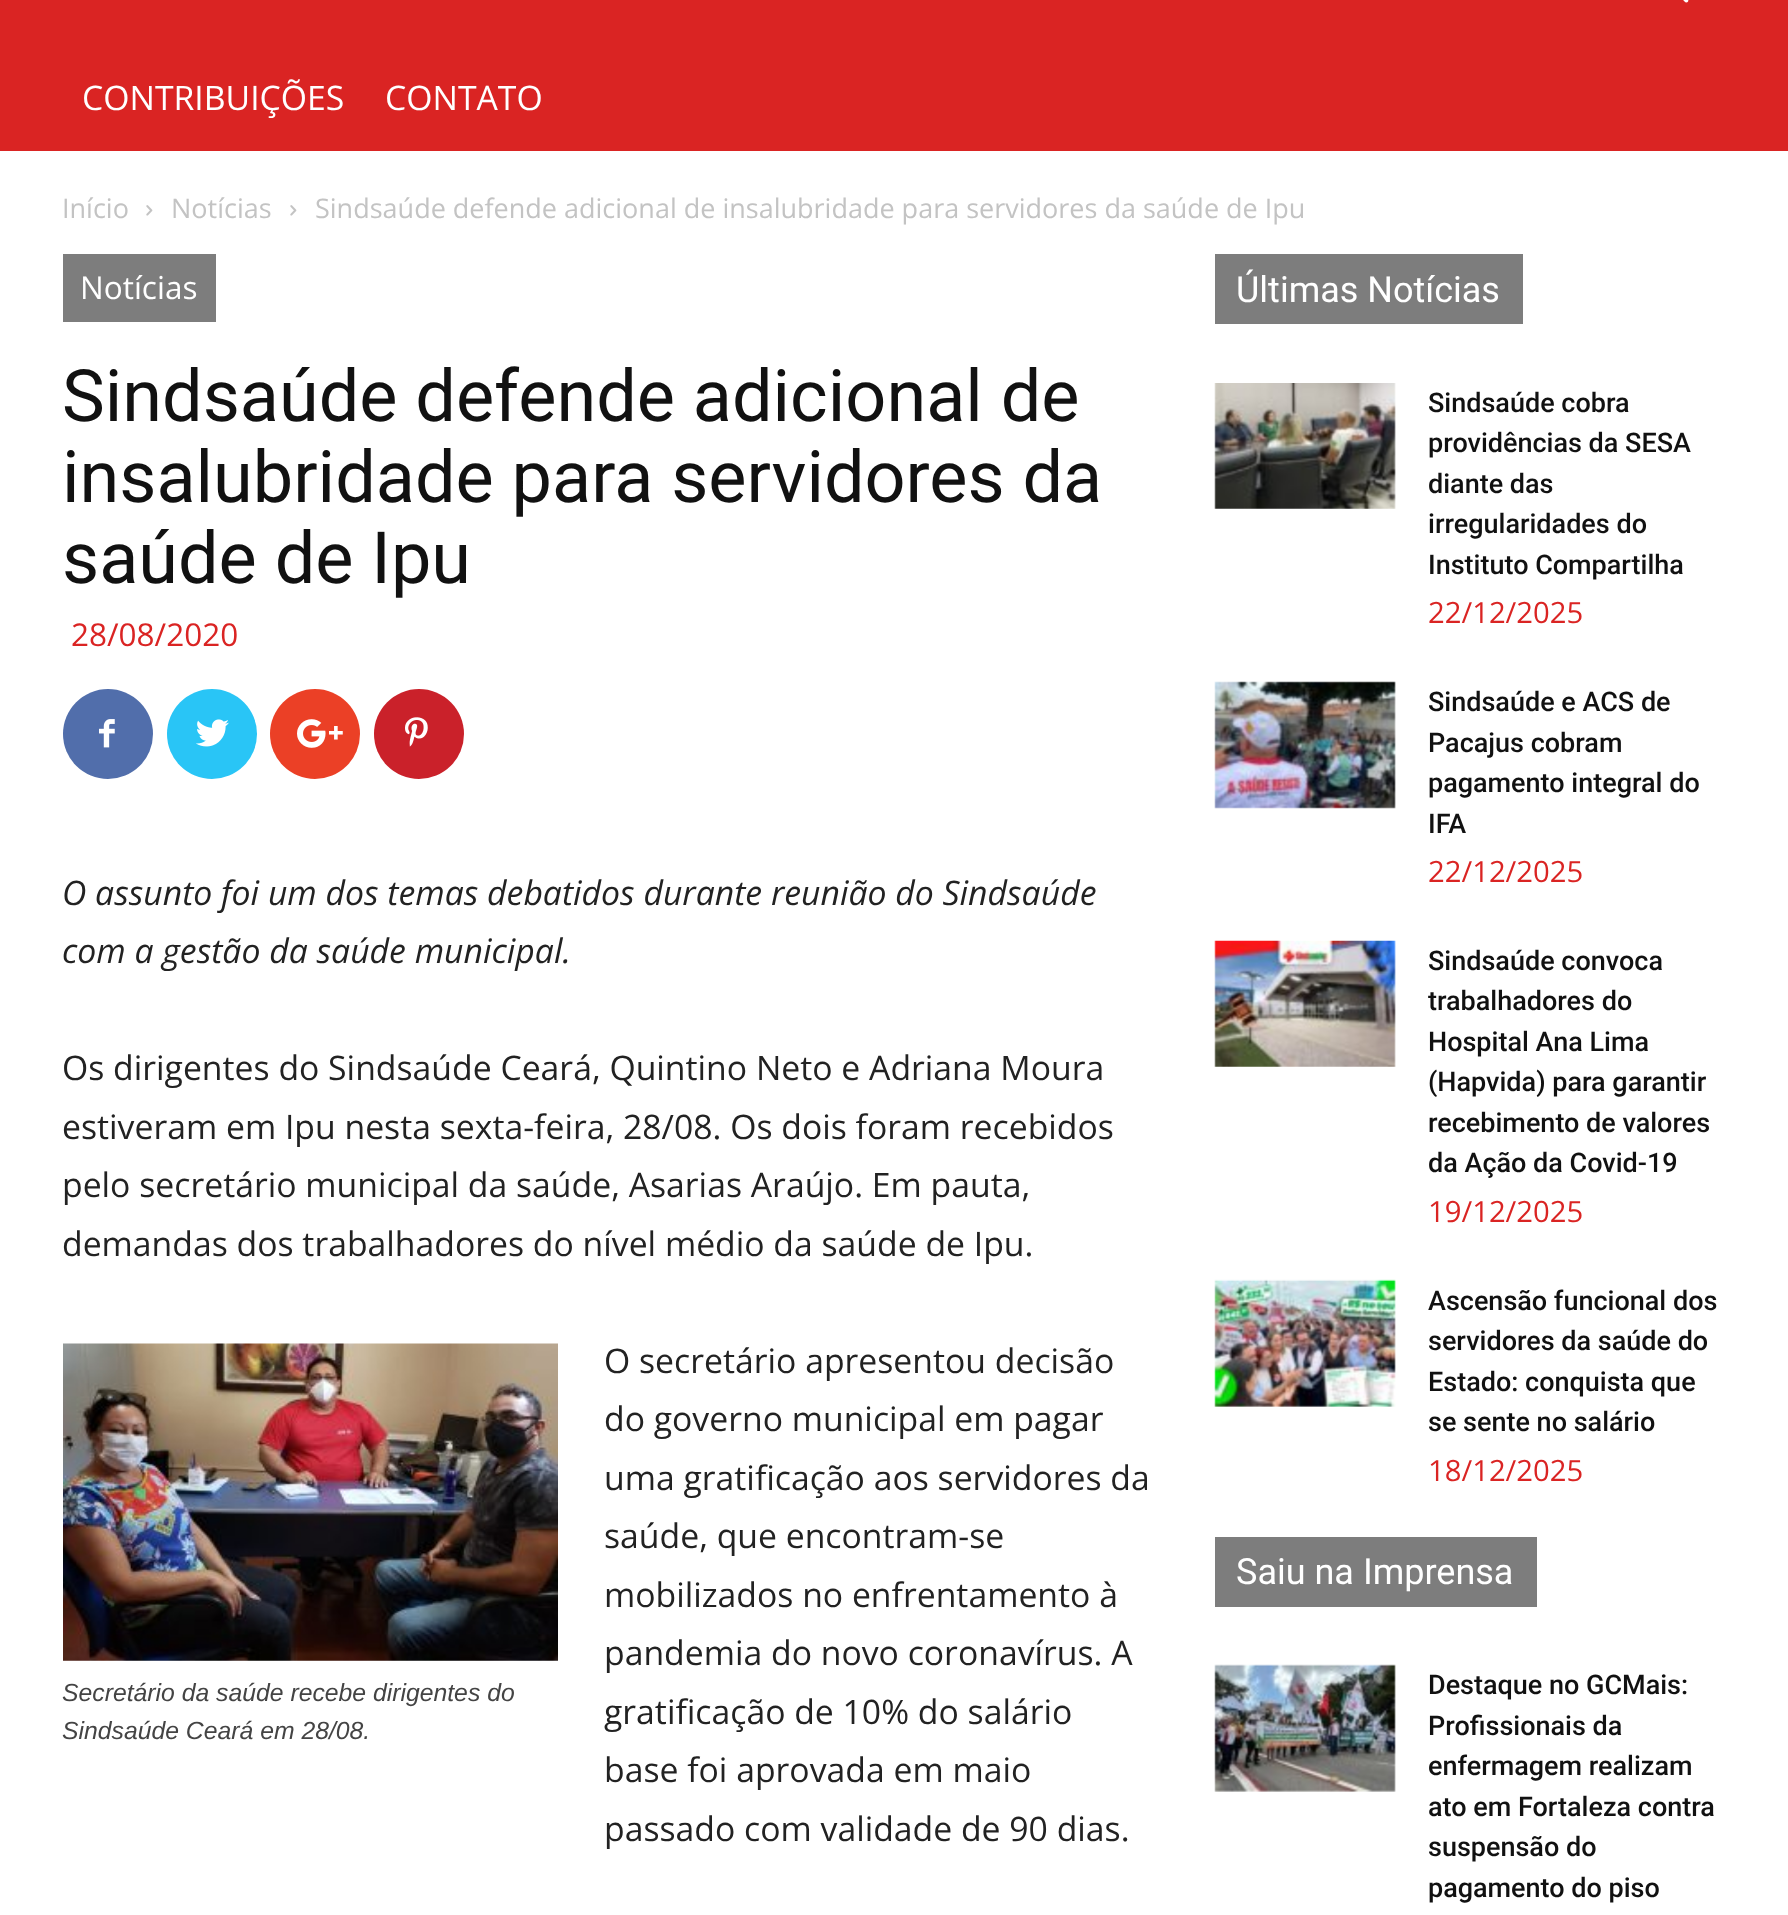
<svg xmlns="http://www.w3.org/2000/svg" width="1788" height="1915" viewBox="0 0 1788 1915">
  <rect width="100%" height="100%" fill="rgb(255,255,255)"/>
  <rect x="0" y="0" width="1788" height="151" fill="rgb(218,36,35)"/>
  <image x="1683" y="0" width="6" height="3" href="pic1.png"/>
  <g font-family="Open Sans" font-size="33.75" fill="rgb(255,255,255)">
    <text x="82" y="110">CONTRIBUIÇÕES</text>
    <text x="385" y="110">CONTATO</text>
  </g>
  <text x="62" y="218" font-family="Open Sans" font-size="27" fill="rgb(195,195,195)">Início</text>
  <image x="146" y="205" width="7" height="11" href="pic2.png"/>
  <text x="171" y="218" font-family="Open Sans" font-size="27" fill="rgb(195,195,195)">Notícias</text>
  <image x="290" y="205" width="7" height="11" href="pic2.png"/>
  <text x="315" y="218" font-family="Open Sans" font-size="27" fill="rgb(195,195,195)">Sindsaúde defende adicional de insalubridade para servidores da saúde de Ipu</text>
  <rect x="63" y="254" width="153" height="68" fill="rgb(125,125,125)"/>
  <text x="80" y="299" font-family="Open Sans" font-size="31.5" fill="rgb(255,255,255)">Notícias</text>
  <g font-family="Roboto" font-size="72" fill="rgb(17,17,17)">
    <text>
      <tspan x="62" y="421">Sindsaúde defende adicional de</tspan>
      <tspan x="62" y="502">insalubridade para servidores da</tspan>
      <tspan x="62" y="583">saúde de Ipu</tspan>
    </text>
  </g>
  <text x="71" y="646" font-family="Open Sans" font-size="31.5" fill="rgb(218,36,35)">28/08/2020</text>
  <circle cx="108" cy="734" r="45" fill="rgb(81,110,171)"/>
  <image x="99" y="719" width="16" height="29" href="pic3.png"/>
  <circle cx="212" cy="734" r="45" fill="rgb(41,197,246)"/>
  <image x="196" y="719" width="33" height="28" href="pic4.png"/>
  <circle cx="315" cy="734" r="45" fill="rgb(235,64,38)"/>
  <image x="297" y="719" width="46" height="29" href="pic5.png"/>
  <circle cx="419" cy="734" r="45" fill="rgb(202,33,42)"/>
  <image x="405" y="717" width="23" height="30" href="pic6.png"/>
  <g font-family="Open Sans" font-size="33.75" font-style="italic" fill="rgb(34,34,34)">
    <text>
      <tspan x="62" y="905">O assunto foi um dos temas debatidos durante reunião do Sindsaúde</tspan>
      <tspan x="62" y="963">com a gestão da saúde municipal.</tspan>
    </text>
  </g>
  <g font-family="Open Sans" font-size="33.75" fill="rgb(34,34,34)">
    <text>
      <tspan x="62" y="1080">Os dirigentes do Sindsaúde Ceará, Quintino Neto e Adriana Moura</tspan>
      <tspan x="62" y="1139">estiveram em Ipu nesta sexta-feira, 28/08. Os dois foram recebidos</tspan>
      <tspan x="62" y="1197">pelo secretário municipal da saúde, Asarias Araújo. Em pauta,</tspan>
      <tspan x="62" y="1256">demandas dos trabalhadores do nível médio da saúde de Ipu.</tspan>
    </text>
  </g>
  <image x="63" y="1343" width="495" height="318" href="pic7.png"/>
  <g font-family="Liberation Sans" font-size="24.75" font-style="italic" fill="rgb(68,68,68)">
    <text>
      <tspan x="62" y="1701">Secretário da saúde recebe dirigentes do</tspan>
      <tspan x="62" y="1739">Sindsaúde Ceará em 28/08.</tspan>
    </text>
  </g>
  <g font-family="Open Sans" font-size="33.75" fill="rgb(34,34,34)">
    <text>
      <tspan x="604" y="1373">O secretário apresentou decisão</tspan>
      <tspan x="604" y="1431">do governo municipal em pagar</tspan>
      <tspan x="604" y="1490">uma gratificação aos servidores da</tspan>
      <tspan x="604" y="1548">saúde, que encontram-se</tspan>
      <tspan x="604" y="1607">mobilizados no enfrentamento à</tspan>
      <tspan x="604" y="1665">pandemia do novo coronavírus. A</tspan>
      <tspan x="604" y="1724">gratificação de 10% do salário</tspan>
      <tspan x="604" y="1782">base foi aprovada em maio</tspan>
      <tspan x="604" y="1841">passado com validade de 90 dias.</tspan>
    </text>
  </g>
  <rect x="1215" y="254" width="308" height="70" fill="rgb(125,125,125)"/>
  <text x="1236" y="302" font-family="Roboto" font-size="36" fill="rgb(255,255,255)">Últimas Notícias</text>
  <image x="1214" y="383" width="182" height="126" href="pic8.png"/>
  <g font-family="Roboto" font-size="27" font-weight="500" fill="rgb(17,17,17)">
    <text>
      <tspan x="1428" y="412">Sindsaúde cobra</tspan>
      <tspan x="1428" y="452">providências da SESA</tspan>
      <tspan x="1428" y="493">diante das</tspan>
      <tspan x="1428" y="533">irregularidades do</tspan>
      <tspan x="1428" y="574">Instituto Compartilha</tspan>
    </text>
  </g>
  <text x="1428" y="623" font-family="Open Sans" font-size="29.25" fill="rgb(218,36,35)">22/12/2025</text>
  <image x="1214" y="681" width="182" height="128" href="pic9.png"/>
  <g font-family="Roboto" font-size="27" font-weight="500" fill="rgb(17,17,17)">
    <text>
      <tspan x="1428" y="711">Sindsaúde e ACS de</tspan>
      <tspan x="1428" y="752">Pacajus cobram</tspan>
      <tspan x="1428" y="792">pagamento integral do</tspan>
      <tspan x="1428" y="833">IFA</tspan>
    </text>
  </g>
  <text x="1428" y="882" font-family="Open Sans" font-size="29.25" fill="rgb(218,36,35)">22/12/2025</text>
  <image x="1214" y="940" width="182" height="127" href="pic10.png"/>
  <g font-family="Roboto" font-size="27" font-weight="500" fill="rgb(17,17,17)">
    <text>
      <tspan x="1428" y="970">Sindsaúde convoca</tspan>
      <tspan x="1428" y="1010">trabalhadores do</tspan>
      <tspan x="1428" y="1051">Hospital Ana Lima</tspan>
      <tspan x="1428" y="1091">(Hapvida) para garantir</tspan>
      <tspan x="1428" y="1132">recebimento de valores</tspan>
      <tspan x="1428" y="1172">da Ação da Covid-19</tspan>
    </text>
  </g>
  <text x="1428" y="1222" font-family="Open Sans" font-size="29.25" fill="rgb(218,36,35)">19/12/2025</text>
  <image x="1214" y="1279" width="182" height="128" href="pic11.png"/>
  <g font-family="Roboto" font-size="27" font-weight="500" fill="rgb(17,17,17)">
    <text>
      <tspan x="1428" y="1310">Ascensão funcional dos</tspan>
      <tspan x="1428" y="1350">servidores da saúde do</tspan>
      <tspan x="1428" y="1391">Estado: conquista que</tspan>
      <tspan x="1428" y="1431">se sente no salário</tspan>
    </text>
  </g>
  <text x="1428" y="1481" font-family="Open Sans" font-size="29.25" fill="rgb(218,36,35)">18/12/2025</text>
  <rect x="1215" y="1537" width="322" height="70" fill="rgb(125,125,125)"/>
  <text x="1236" y="1584" font-family="Roboto" font-size="36" fill="rgb(255,255,255)">Saiu na Imprensa</text>
  <image x="1214" y="1664" width="182" height="128" href="pic12.png"/>
  <g font-family="Roboto" font-size="27" font-weight="500" fill="rgb(17,17,17)">
    <text>
      <tspan x="1428" y="1694">Destaque no GCMais:</tspan>
      <tspan x="1428" y="1735">Profissionais da</tspan>
      <tspan x="1428" y="1775">enfermagem realizam</tspan>
      <tspan x="1428" y="1816">ato em Fortaleza contra</tspan>
      <tspan x="1428" y="1856">suspensão do</tspan>
      <tspan x="1428" y="1897">pagamento do piso</tspan>
    </text>
  </g>
</svg>
